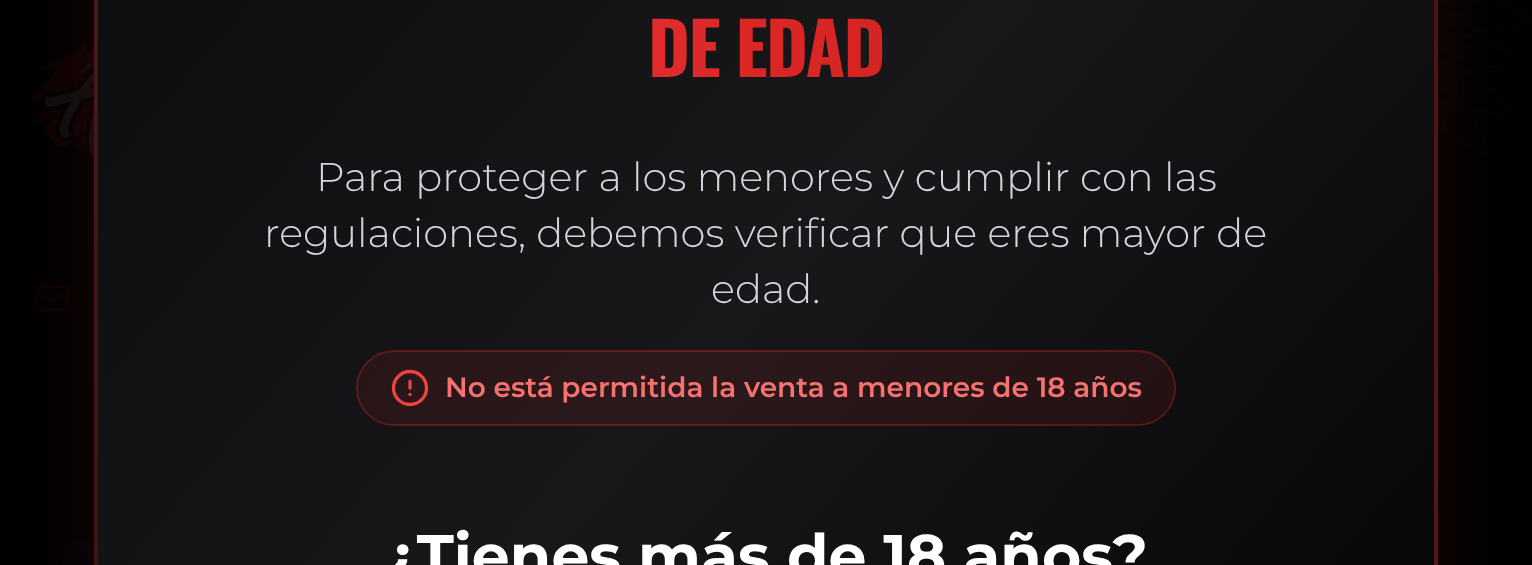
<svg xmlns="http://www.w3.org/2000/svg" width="1532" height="565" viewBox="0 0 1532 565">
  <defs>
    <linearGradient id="g1" gradientUnits="userSpaceOnUse" x1="194" y1="45" x2="1338" y2="45"><stop offset="0" stop-color="rgb(239,68,68)"/><stop offset="0.5" stop-color="rgb(220,38,38)"/><stop offset="1" stop-color="rgb(185,28,28)"/></linearGradient>
    <linearGradient id="g2" gradientUnits="userSpaceOnUse" x1="766" y1="-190" x2="766" y2="2"><stop offset="0" stop-color="rgb(0,0,0)" stop-opacity="0.95"/><stop offset="0.5" stop-color="rgb(0,0,1)" stop-opacity="0.95"/><stop offset="1" stop-color="rgb(0,0,1)" stop-opacity="0.9"/></linearGradient>
    <linearGradient id="g3" gradientUnits="userSpaceOnUse" x1="766" y1="2" x2="766" y2="194"><stop offset="0" stop-color="rgb(0,0,0)" stop-opacity="0.95"/><stop offset="0.5" stop-color="rgb(0,0,1)" stop-opacity="0.95"/><stop offset="1" stop-color="rgb(0,0,1)" stop-opacity="0.9"/></linearGradient>
    <linearGradient id="g4" gradientUnits="userSpaceOnUse" x1="-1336" y1="-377" x2="196" y2="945"><stop offset="0" stop-color="rgb(9,9,11)"/><stop offset="0.5" stop-color="rgb(24,24,27)"/><stop offset="1" stop-color="rgb(0,0,0)"/></linearGradient>
    <linearGradient id="g5" gradientUnits="userSpaceOnUse" x1="0.3" y1="-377" x2="1532" y2="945"><stop offset="0" stop-color="rgb(9,9,11)"/><stop offset="0.5" stop-color="rgb(24,24,27)"/><stop offset="1" stop-color="rgb(0,0,0)"/></linearGradient>
    <linearGradient id="g6" gradientUnits="userSpaceOnUse" x1="1336" y1="-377" x2="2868" y2="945"><stop offset="0" stop-color="rgb(9,9,11)"/><stop offset="0.5" stop-color="rgb(24,24,27)"/><stop offset="1" stop-color="rgb(0,0,0)"/></linearGradient>
  </defs>
  <rect width="100%" height="100%" fill="rgb(0,0,0)"/>
  <path d="M52 3.5V10L57 15M67 10C67 18.5 60.5 25 52 25C43.5 25 37 18.5 37 10C37 1.5 43.5-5 52-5C60.5-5 67 1.5 67 10Z" fill="none" stroke="rgb(11,2,2)" stroke-width="3.3" stroke-linecap="round" stroke-linejoin="round"/>
  <rect x="37" y="0" width="30" height="2" fill="url(#g2)"/>
  <path d="M61.5 146L56.5 150.5C55 152 53 155 50 153L41 143.5C37.5 138.5 38 131.5 42.5 127C55 114.5 74 133.5 61.5 146ZM57 136.5C57 143 47 143 47 136.5C47 130 57 130 57 136.5Z" fill="none" stroke="rgb(11,2,2)" stroke-width="3.3" stroke-linecap="round" stroke-linejoin="round"/>
  <rect x="35" y="2" width="34" height="153" fill="url(#g3)"/>
  <image x="32" y="34" width="62" height="184" href="pic1.png"/>
  <image x="35" y="284" width="34" height="28" href="pic2.png"/>
  <image x="61" y="540" width="33" height="25" href="pic3.png"/>
  <image x="1438" y="0" width="94" height="302" href="pic4.png"/>
  <rect x="118" y="-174" width="1296" height="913" rx="24" fill="rgba(220,38,38,0.2)" filter="blur(50px)"/>
  <rect x="94" y="0" width="4" height="565" fill="url(#g4)"/>
  <rect x="98" y="0" width="1336" height="565" fill="url(#g5)"/>
  <rect x="1434" y="0" width="4" height="565" fill="url(#g6)"/>
  <rect x="96" y="-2" width="1340" height="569" fill="none" stroke="rgba(220,38,38,0.3)" stroke-width="4"/>
  <text x="648" y="77" font-family="Oswald" font-size="72" font-weight="bold" letter-spacing="-1.75" fill="url(#g1)">DE EDAD</text>
  <g font-family="Montserrat" font-size="40" font-weight="300" fill="rgb(209,213,219)">
    <text x="316" y="191">Para proteger a los menores y cumplir con las</text>
    <text x="264" y="247">regulaciones, debemos verificar que eres mayor de</text>
    <text x="711" y="303">edad.</text>
  </g>
  <rect x="356" y="350" width="820" height="76" rx="38" fill="rgba(220,38,38,0.1)"/>
  <rect x="357" y="351" width="818" height="74" rx="37" fill="none" stroke="rgba(220,38,38,0.3)" stroke-width="2"/>
  <circle cx="410" cy="388" r="16.5" fill="none" stroke="rgb(239,68,68)" stroke-width="3.3"/>
  <path d="M410 381.5V388M410 394.5H410" fill="none" stroke="rgb(239,68,68)" stroke-width="3.3" stroke-linecap="round" stroke-linejoin="round"/>
  <text x="445" y="397" font-family="Montserrat" font-size="28" font-weight="600" fill="rgb(248,113,113)">No está permitida la venta a menores de 18 años</text>
  <text x="385" y="577" font-family="Montserrat" font-size="60" font-weight="bold" fill="rgb(255,255,255)">¿Tienes más de 18 años?</text>
</svg>
